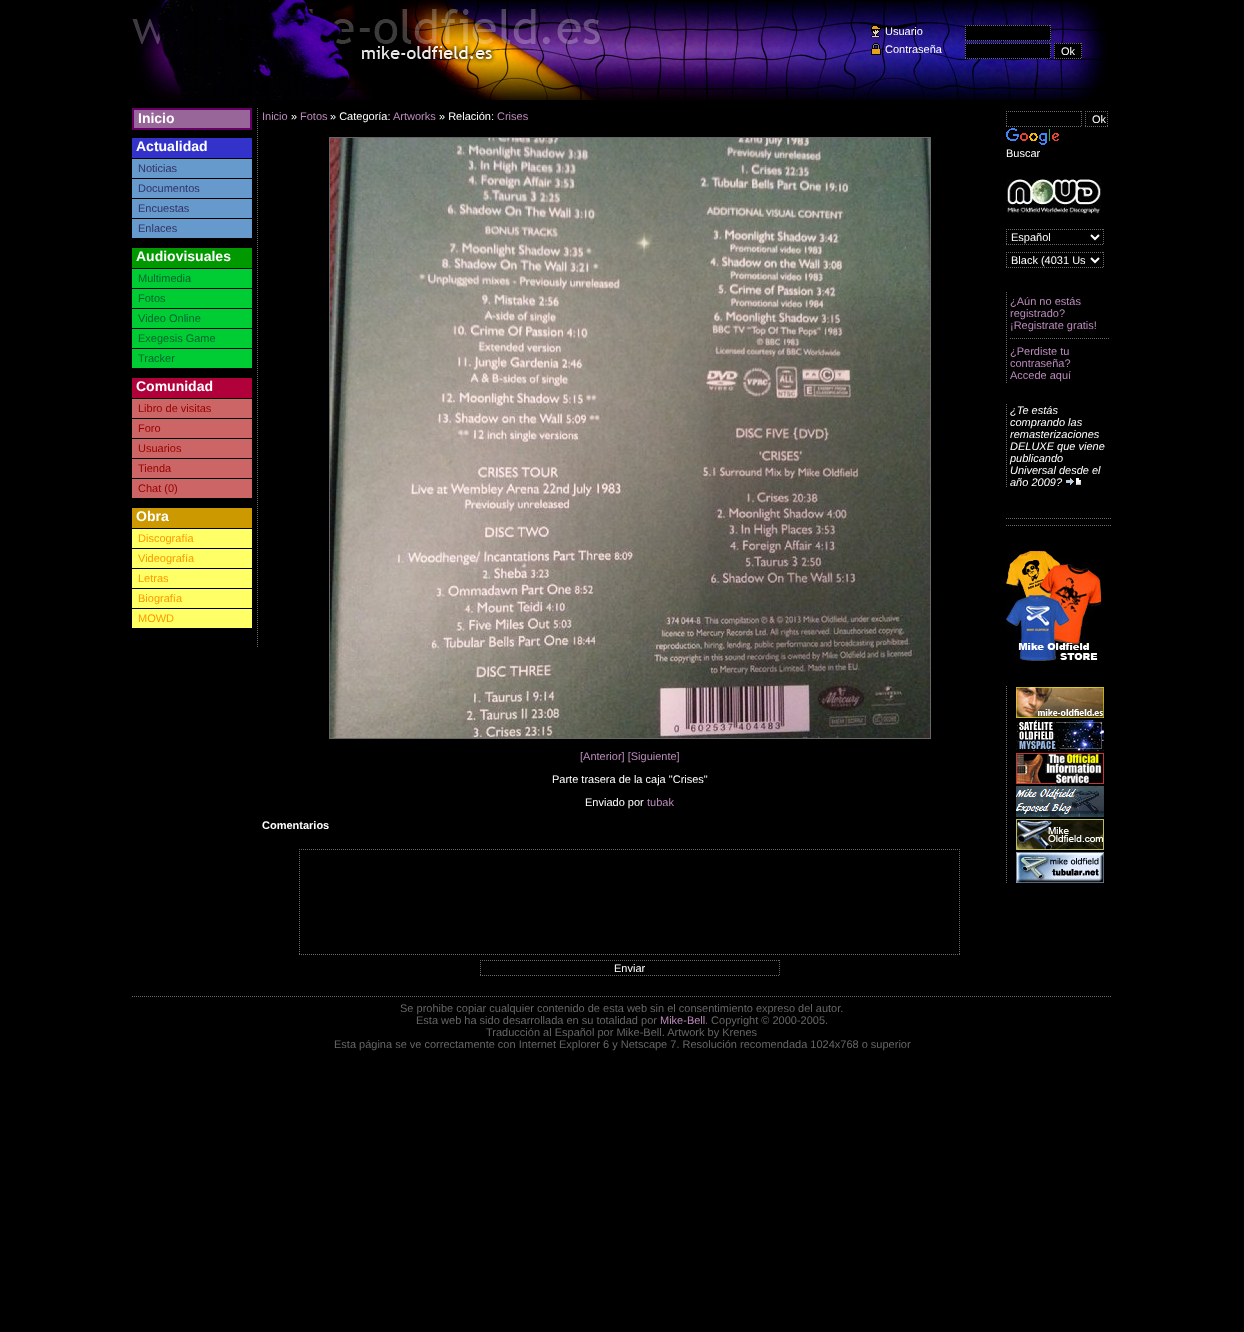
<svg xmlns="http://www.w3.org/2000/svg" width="1244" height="1332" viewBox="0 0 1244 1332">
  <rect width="100%" height="100%" fill="rgb(0,0,0)"/>
  <image x="132" y="0" width="975" height="100" href="pic1.png"/>
  <image x="871" y="25" width="10" height="12" href="pic2.png"/>
  <text x="885" y="35" font-family="Liberation Sans" font-size="11" fill="rgb(255,255,255)">Usuario</text>
  <rect x="965" y="25" width="86" height="16" fill="rgb(0,0,0)"/>
  <path d="M965 25.5H1051" fill="none" stroke="rgb(102,102,102)" stroke-dasharray="1 1"/>
  <path d="M1050.5 25V41" fill="none" stroke="rgb(102,102,102)" stroke-dasharray="1 1"/>
  <path d="M965 40.5H1051" fill="none" stroke="rgb(102,102,102)" stroke-dasharray="1 1"/>
  <path d="M965.5 25V41" fill="none" stroke="rgb(102,102,102)" stroke-dasharray="1 1"/>
  <image x="871" y="43" width="10" height="12" href="pic3.png"/>
  <text x="885" y="53" font-family="Liberation Sans" font-size="11" fill="rgb(255,255,255)">Contraseña</text>
  <rect x="965" y="43" width="86" height="16" fill="rgb(0,0,0)"/>
  <path d="M965 43.5H1051" fill="none" stroke="rgb(102,102,102)" stroke-dasharray="1 1"/>
  <path d="M1050.5 43V59" fill="none" stroke="rgb(102,102,102)" stroke-dasharray="1 1"/>
  <path d="M965 58.5H1051" fill="none" stroke="rgb(102,102,102)" stroke-dasharray="1 1"/>
  <path d="M965.5 43V59" fill="none" stroke="rgb(102,102,102)" stroke-dasharray="1 1"/>
  <rect x="1054" y="43" width="28" height="16" fill="rgb(0,0,0)"/>
  <path d="M1054 43.5H1082M1081.5 43V59M1054 58.5H1082M1054.5 43V59" fill="none" stroke="rgb(102,102,102)" stroke-dasharray="1 1"/>
  <text x="1061" y="55" font-family="Liberation Sans" font-size="11" fill="rgb(255,255,255)">Ok</text>
  <path d="M257.5 108V648" fill="none" stroke="rgb(102,102,102)" stroke-dasharray="1 1"/>
  <rect x="133" y="109" width="118" height="20" fill="rgb(153,102,153)" stroke="rgb(102,0,102)" stroke-width="2"/>
  <text x="138" y="123" font-family="Liberation Sans" font-size="14" font-weight="bold" fill="rgb(255,255,255)">Inicio</text>
  <rect x="132" y="138" width="120" height="20" fill="rgb(51,51,204)"/>
  <text x="136" y="151" font-family="Liberation Sans" font-size="14" font-weight="bold" fill="rgb(255,255,255)">Actualidad</text>
  <rect x="132" y="159" width="120" height="19" fill="rgb(102,153,204)"/>
  <text x="138" y="172" font-family="Liberation Sans" font-size="11" fill="rgb(51,51,102)">Noticias</text>
  <rect x="132" y="179" width="120" height="19" fill="rgb(102,153,204)"/>
  <text x="138" y="192" font-family="Liberation Sans" font-size="11" fill="rgb(51,51,102)">Documentos</text>
  <rect x="132" y="199" width="120" height="19" fill="rgb(102,153,204)"/>
  <text x="138" y="212" font-family="Liberation Sans" font-size="11" fill="rgb(51,51,102)">Encuestas</text>
  <rect x="132" y="219" width="120" height="19" fill="rgb(102,153,204)"/>
  <text x="138" y="232" font-family="Liberation Sans" font-size="11" fill="rgb(51,51,102)">Enlaces</text>
  <rect x="132" y="248" width="120" height="20" fill="rgb(0,153,0)"/>
  <text x="136" y="261" font-family="Liberation Sans" font-size="14" font-weight="bold" fill="rgb(255,255,255)">Audiovisuales</text>
  <rect x="132" y="269" width="120" height="19" fill="rgb(0,204,51)"/>
  <text x="138" y="282" font-family="Liberation Sans" font-size="11" fill="rgb(0,102,51)">Multimedia</text>
  <rect x="132" y="289" width="120" height="19" fill="rgb(0,204,51)"/>
  <text x="138" y="302" font-family="Liberation Sans" font-size="11" fill="rgb(0,102,51)">Fotos</text>
  <rect x="132" y="309" width="120" height="19" fill="rgb(0,204,51)"/>
  <text x="138" y="322" font-family="Liberation Sans" font-size="11" fill="rgb(0,102,51)">Video Online</text>
  <rect x="132" y="329" width="120" height="19" fill="rgb(0,204,51)"/>
  <text x="138" y="342" font-family="Liberation Sans" font-size="11" fill="rgb(0,102,51)">Exegesis Game</text>
  <rect x="132" y="349" width="120" height="19" fill="rgb(0,204,51)"/>
  <text x="138" y="362" font-family="Liberation Sans" font-size="11" fill="rgb(0,102,51)">Tracker</text>
  <rect x="132" y="378" width="120" height="20" fill="rgb(177,1,59)"/>
  <text x="136" y="391" font-family="Liberation Sans" font-size="14" font-weight="bold" fill="rgb(255,255,255)">Comunidad</text>
  <rect x="132" y="399" width="120" height="19" fill="rgb(204,102,102)"/>
  <text x="138" y="412" font-family="Liberation Sans" font-size="11" fill="rgb(153,0,0)">Libro de visitas</text>
  <rect x="132" y="419" width="120" height="19" fill="rgb(204,102,102)"/>
  <text x="138" y="432" font-family="Liberation Sans" font-size="11" fill="rgb(153,0,0)">Foro</text>
  <rect x="132" y="439" width="120" height="19" fill="rgb(204,102,102)"/>
  <text x="138" y="452" font-family="Liberation Sans" font-size="11" fill="rgb(153,0,0)">Usuarios</text>
  <rect x="132" y="459" width="120" height="19" fill="rgb(204,102,102)"/>
  <text x="138" y="472" font-family="Liberation Sans" font-size="11" fill="rgb(153,0,0)">Tienda</text>
  <rect x="132" y="479" width="120" height="19" fill="rgb(204,102,102)"/>
  <text x="138" y="492" font-family="Liberation Sans" font-size="11" fill="rgb(153,0,0)">Chat (0)</text>
  <rect x="132" y="508" width="120" height="20" fill="rgb(204,153,0)"/>
  <text x="136" y="521" font-family="Liberation Sans" font-size="14" font-weight="bold" fill="rgb(255,255,255)">Obra</text>
  <rect x="132" y="529" width="120" height="19" fill="rgb(255,255,102)"/>
  <text x="138" y="542" font-family="Liberation Sans" font-size="11" fill="rgb(255,153,0)">Discografía</text>
  <rect x="132" y="549" width="120" height="19" fill="rgb(255,255,102)"/>
  <text x="138" y="562" font-family="Liberation Sans" font-size="11" fill="rgb(255,153,0)">Videografía</text>
  <rect x="132" y="569" width="120" height="19" fill="rgb(255,255,102)"/>
  <text x="138" y="582" font-family="Liberation Sans" font-size="11" fill="rgb(255,153,0)">Letras</text>
  <rect x="132" y="589" width="120" height="19" fill="rgb(255,255,102)"/>
  <text x="138" y="602" font-family="Liberation Sans" font-size="11" fill="rgb(255,153,0)">Biografía</text>
  <rect x="132" y="609" width="120" height="19" fill="rgb(255,255,102)"/>
  <text x="138" y="622" font-family="Liberation Sans" font-size="11" fill="rgb(255,153,0)">MOWD</text>
  <text x="262" y="120" font-family="Liberation Sans" font-size="11" fill="rgb(189,139,189)">Inicio</text>
  <text x="291" y="120" font-family="Liberation Sans" font-size="11" fill="rgb(255,255,255)">»</text>
  <text x="300" y="120" font-family="Liberation Sans" font-size="11" fill="rgb(189,139,189)">Fotos</text>
  <text x="330" y="120" font-family="Liberation Sans" font-size="11" fill="rgb(255,255,255)">» Categoría:</text>
  <text x="393" y="120" font-family="Liberation Sans" font-size="11" fill="rgb(189,139,189)">Artworks</text>
  <text x="439" y="120" font-family="Liberation Sans" font-size="11" fill="rgb(255,255,255)">» Relación:</text>
  <text x="497" y="120" font-family="Liberation Sans" font-size="11" fill="rgb(189,139,189)">Crises</text>
  <image x="330" y="138" width="600" height="600" href="pic4.png"/>
  <rect x="329.5" y="137.5" width="601" height="601" fill="none" stroke="rgb(102,102,102)"/>
  <text x="580" y="760" font-family="Liberation Sans" font-size="11" fill="rgb(189,139,189)">[Anterior] [Siguiente]</text>
  <g font-family="Liberation Sans" font-size="11" fill="rgb(255,255,255)">
    <text x="552" y="783">Parte trasera de la caja "Crises"</text>
    <text x="585" y="806">Enviado por</text>
  </g>
  <text x="647" y="806" font-family="Liberation Sans" font-size="11" fill="rgb(189,139,189)">tubak</text>
  <text x="262" y="829" font-family="Liberation Sans" font-size="11" font-weight="bold" fill="rgb(255,255,255)">Comentarios</text>
  <path d="M299 849.5H960" fill="none" stroke="rgb(102,102,102)" stroke-dasharray="1 1"/>
  <path d="M959.5 849V955" fill="none" stroke="rgb(102,102,102)" stroke-dasharray="1 1"/>
  <path d="M299 954.5H960" fill="none" stroke="rgb(102,102,102)" stroke-dasharray="1 1"/>
  <path d="M299.5 849V955" fill="none" stroke="rgb(102,102,102)" stroke-dasharray="1 1"/>
  <path d="M480 960.5H780" fill="none" stroke="rgb(102,102,102)" stroke-dasharray="1 1"/>
  <path d="M779.5 960V976" fill="none" stroke="rgb(102,102,102)" stroke-dasharray="1 1"/>
  <path d="M480 975.5H780" fill="none" stroke="rgb(102,102,102)" stroke-dasharray="1 1"/>
  <path d="M480.5 960V976" fill="none" stroke="rgb(102,102,102)" stroke-dasharray="1 1"/>
  <text x="614" y="972" font-family="Liberation Sans" font-size="11" fill="rgb(255,255,255)">Enviar</text>
  <path d="M1006 111.5H1082" fill="none" stroke="rgb(102,102,102)" stroke-dasharray="1 1"/>
  <path d="M1081.5 111V127" fill="none" stroke="rgb(102,102,102)" stroke-dasharray="1 1"/>
  <path d="M1006 126.5H1082" fill="none" stroke="rgb(102,102,102)" stroke-dasharray="1 1"/>
  <path d="M1006.5 111V127" fill="none" stroke="rgb(102,102,102)" stroke-dasharray="1 1"/>
  <path d="M1085 111.5H1108M1107.5 111V127M1085 126.5H1108M1085.5 111V127" fill="none" stroke="rgb(102,102,102)" stroke-dasharray="1 1"/>
  <text x="1092" y="123" font-family="Liberation Sans" font-size="11" fill="rgb(255,255,255)">Ok</text>
  <image x="1006" y="128" width="53" height="17" href="pic5.png"/>
  <text x="1006" y="157" font-family="Liberation Sans" font-size="11" fill="rgb(255,255,255)">Buscar</text>
  <image x="1006" y="179" width="95" height="35" href="pic6.png"/>
  <path d="M1006 229.5H1104" fill="none" stroke="rgb(102,102,102)" stroke-dasharray="1 1"/>
  <path d="M1103.5 229V245" fill="none" stroke="rgb(102,102,102)" stroke-dasharray="1 1"/>
  <path d="M1006 244.5H1104" fill="none" stroke="rgb(102,102,102)" stroke-dasharray="1 1"/>
  <path d="M1006.5 229V245" fill="none" stroke="rgb(102,102,102)" stroke-dasharray="1 1"/>
  <path d="M1091 235L1095 239L1099 235" fill="none" stroke="rgb(255,255,255)" stroke-width="2"/>
  <text x="1011" y="241" font-family="Liberation Sans" font-size="11" fill="rgb(255,255,255)">Español</text>
  <path d="M1006 252.5H1104" fill="none" stroke="rgb(102,102,102)" stroke-dasharray="1 1"/>
  <path d="M1103.5 252V268" fill="none" stroke="rgb(102,102,102)" stroke-dasharray="1 1"/>
  <path d="M1006 267.5H1104" fill="none" stroke="rgb(102,102,102)" stroke-dasharray="1 1"/>
  <path d="M1006.5 252V268" fill="none" stroke="rgb(102,102,102)" stroke-dasharray="1 1"/>
  <path d="M1091 258L1095 262L1099 258" fill="none" stroke="rgb(255,255,255)" stroke-width="2"/>
  <text x="1011" y="264" font-family="Liberation Sans" font-size="11" fill="rgb(255,255,255)">Black (4031 Us</text>
  <path d="M1006.5 292V384" fill="none" stroke="rgb(102,102,102)" stroke-dasharray="1 1"/>
  <g font-family="Liberation Sans" font-size="11" fill="rgb(189,139,189)">
    <text>
      <tspan x="1010" y="305">¿Aún no estás</tspan>
      <tspan x="1010" y="317">registrado?</tspan>
      <tspan x="1010" y="329">¡Registrate gratis!</tspan>
    </text>
  </g>
  <path d="M1010 338.5H1109" fill="none" stroke="rgb(102,102,102)" stroke-dasharray="1 1"/>
  <g font-family="Liberation Sans" font-size="11" fill="rgb(189,139,189)">
    <text>
      <tspan x="1010" y="355">¿Perdiste tu</tspan>
      <tspan x="1010" y="367">contraseña?</tspan>
      <tspan x="1010" y="379">Accede aquí</tspan>
    </text>
  </g>
  <path d="M1006.5 404V488" fill="none" stroke="rgb(102,102,102)" stroke-dasharray="1 1"/>
  <g font-family="Liberation Sans" font-size="11" font-style="italic" fill="rgb(255,255,255)">
    <text>
      <tspan x="1010" y="414">¿Te estás</tspan>
      <tspan x="1010" y="426">comprando las</tspan>
      <tspan x="1010" y="438">remasterizaciones</tspan>
      <tspan x="1010" y="450">DELUXE que viene</tspan>
      <tspan x="1010" y="462">publicando</tspan>
      <tspan x="1010" y="474">Universal desde el</tspan>
      <tspan x="1010" y="486">año 2009?</tspan>
    </text>
  </g>
  <image x="1066" y="478" width="15" height="7" href="pic7.png"/>
  <path d="M1006 518.5H1112" fill="none" stroke="rgb(102,102,102)" stroke-dasharray="1 1"/>
  <path d="M1006 525.5H1112" fill="none" stroke="rgb(102,102,102)" stroke-dasharray="1 1"/>
  <image x="1006" y="551" width="95" height="110" href="pic8.png"/>
  <path d="M1006.5 686V884" fill="none" stroke="rgb(102,102,102)" stroke-dasharray="1 1"/>
  <image x="1016" y="687" width="88" height="31" href="pic9.png"/>
  <image x="1016" y="720" width="88" height="31" href="pic10.png"/>
  <image x="1016" y="753" width="88" height="31" href="pic11.png"/>
  <image x="1016" y="786" width="88" height="31" href="pic12.png"/>
  <image x="1016" y="819" width="88" height="31" href="pic13.png"/>
  <image x="1016" y="852" width="88" height="31" href="pic14.png"/>
  <path d="M132 996.5H1112" fill="none" stroke="rgb(102,102,102)" stroke-dasharray="1 1"/>
  <g font-family="Liberation Sans" font-size="11" fill="rgb(102,102,102)">
    <text x="400" y="1012">Se prohibe copiar cualquier contenido de esta web sin el consentimiento expreso del autor.</text>
    <text x="416" y="1024">Esta web ha sido desarrollada en su totalidad por</text>
  </g>
  <text x="660" y="1024" font-family="Liberation Sans" font-size="11" fill="rgb(189,139,189)">Mike-Bell</text>
  <g font-family="Liberation Sans" font-size="11" fill="rgb(102,102,102)">
    <text x="705" y="1024">. Copyright © 2000-2005.</text>
    <text x="486" y="1036">Traducción al Español por Mike-Bell. Artwork by Krenes</text>
    <text x="334" y="1048">Esta página se ve correctamente con Internet Explorer 6 y Netscape 7. Resolución recomendada 1024x768 o superior</text>
  </g>
</svg>
